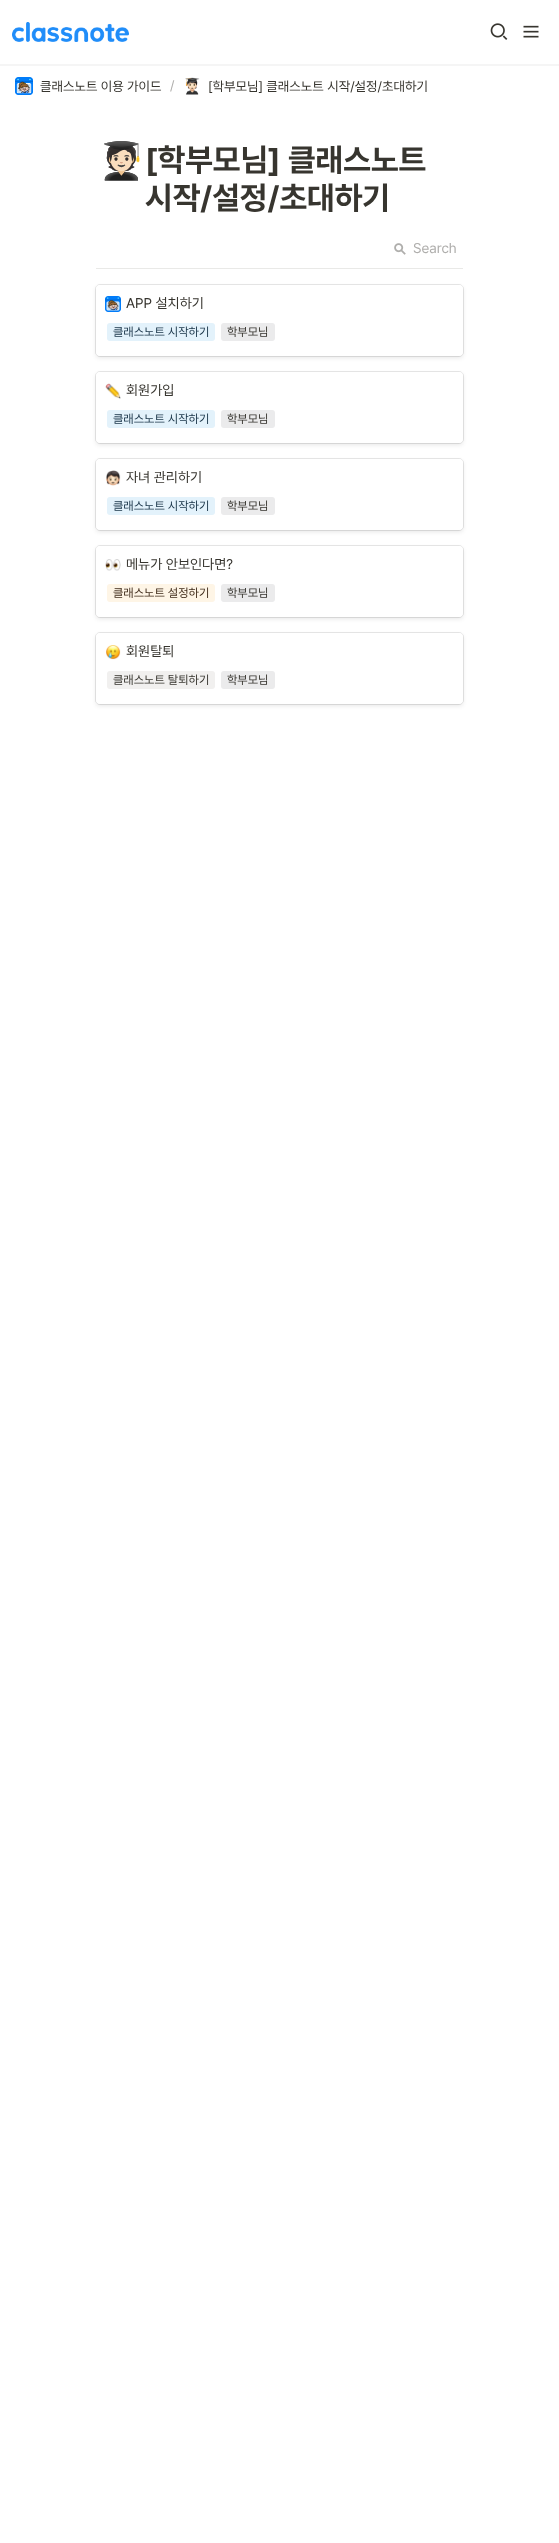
<svg xmlns="http://www.w3.org/2000/svg" width="559" height="2543" viewBox="0 0 559 2543">
  <rect width="100%" height="100%" fill="rgb(255,255,255)"/>
  <image x="12" y="22" width="117" height="20" href="pic1.png"/>
  <image x="490" y="23" width="18" height="17" href="pic2.png"/>
  <image x="523" y="25" width="16" height="13" href="pic3.png"/>
  <rect x="0" y="64" width="559" height="2" fill="rgb(245,245,245)"/>
  <image x="15" y="77" width="18" height="18" href="pic4.png"/>
  <text x="40" y="91" font-family="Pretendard" font-size="13.3" fill="rgb(55,53,47)">클래스노트 이용 가이드</text>
  <text x="170" y="90" font-family="Pretendard" font-size="13.3" fill="rgb(175,174,172)">/</text>
  <image x="185" y="77" width="15" height="18" href="pic5.png"/>
  <text x="208" y="91" font-family="Pretendard" font-size="13.3" fill="rgb(55,53,47)">[학부모님] 클래스노트 시작/설정/초대하기</text>
  <text x="99" y="173" font-family="Noto Color Emoji" font-size="36" fill="rgb(0,0,0)">🧑🏻‍🎓</text>
  <g font-family="Pretendard" font-size="32" font-weight="bold" fill="rgb(55,53,47)">
    <text>
      <tspan x="145" y="171">[학부모님] 클래스노트</tspan>
      <tspan x="145" y="209">시작/설정/초대하기</tspan>
    </text>
  </g>
  <rect x="96" y="268" width="367" height="1" fill="rgb(233,233,231)"/>
  <image x="394" y="243" width="12" height="12" href="pic6.png"/>
  <text x="413" y="253" font-family="Pretendard" font-size="14" fill="rgb(175,174,172)">Search</text>
  <rect x="96" y="287" width="367" height="71" rx="4" fill="rgba(15,15,15,0.1)" filter="blur(2px)"/>
  <rect x="95.5" y="284.5" width="368" height="72" rx="4.5" fill="none" stroke="rgba(15,15,15,0.1)"/>
  <rect x="96" y="285" width="367" height="71" rx="4" fill="rgb(255,255,255)"/>
  <image x="105" y="296" width="16" height="16" href="pic7.png"/>
  <text x="126" y="308" font-family="Pretendard" font-size="14" fill="rgb(55,53,47)">APP 설치하기</text>
  <rect x="107" y="323" width="108" height="18" rx="3" fill="rgb(227,242,251)"/>
  <text x="113" y="336" font-family="Pretendard" font-size="12" fill="rgb(24,51,71)">클래스노트 시작하기</text>
  <rect x="221" y="323" width="54" height="18" rx="3" fill="rgb(235,235,236)"/>
  <text x="227" y="336" font-family="Pretendard" font-size="12" fill="rgb(55,53,47)">학부모님</text>
  <rect x="96" y="374" width="367" height="71" rx="4" fill="rgba(15,15,15,0.1)" filter="blur(2px)"/>
  <rect x="95.5" y="371.5" width="368" height="72" rx="4.5" fill="none" stroke="rgba(15,15,15,0.1)"/>
  <rect x="96" y="372" width="367" height="71" rx="4" fill="rgb(255,255,255)"/>
  <image x="105" y="383" width="16" height="16" href="pic8.png"/>
  <text x="126" y="395" font-family="Pretendard" font-size="14" fill="rgb(55,53,47)">회원가입</text>
  <rect x="107" y="410" width="108" height="18" rx="3" fill="rgb(227,242,251)"/>
  <text x="113" y="423" font-family="Pretendard" font-size="12" fill="rgb(24,51,71)">클래스노트 시작하기</text>
  <rect x="221" y="410" width="54" height="18" rx="3" fill="rgb(235,235,236)"/>
  <text x="227" y="423" font-family="Pretendard" font-size="12" fill="rgb(55,53,47)">학부모님</text>
  <rect x="96" y="461" width="367" height="71" rx="4" fill="rgba(15,15,15,0.1)" filter="blur(2px)"/>
  <rect x="95.5" y="458.5" width="368" height="72" rx="4.5" fill="none" stroke="rgba(15,15,15,0.1)"/>
  <rect x="96" y="459" width="367" height="71" rx="4" fill="rgb(255,255,255)"/>
  <image x="106" y="470" width="15" height="16" href="pic9.png"/>
  <text x="126" y="482" font-family="Pretendard" font-size="14" fill="rgb(55,53,47)">자녀 관리하기</text>
  <rect x="107" y="497" width="108" height="18" rx="3" fill="rgb(227,242,251)"/>
  <text x="113" y="510" font-family="Pretendard" font-size="12" fill="rgb(24,51,71)">클래스노트 시작하기</text>
  <rect x="221" y="497" width="54" height="18" rx="3" fill="rgb(235,235,236)"/>
  <text x="227" y="510" font-family="Pretendard" font-size="12" fill="rgb(55,53,47)">학부모님</text>
  <rect x="96" y="548" width="367" height="71" rx="4" fill="rgba(15,15,15,0.1)" filter="blur(2px)"/>
  <rect x="95.5" y="545.5" width="368" height="72" rx="4.5" fill="none" stroke="rgba(15,15,15,0.1)"/>
  <rect x="96" y="546" width="367" height="71" rx="4" fill="rgb(255,255,255)"/>
  <image x="105" y="559" width="16" height="12" href="pic10.png"/>
  <text x="126" y="569" font-family="Pretendard" font-size="14" fill="rgb(55,53,47)">메뉴가 안보인다면?</text>
  <rect x="107" y="584" width="108" height="18" rx="3" fill="rgb(254,245,230)"/>
  <text x="113" y="597" font-family="Pretendard" font-size="12" fill="rgb(64,44,27)">클래스노트 설정하기</text>
  <rect x="221" y="584" width="54" height="18" rx="3" fill="rgb(235,235,236)"/>
  <text x="227" y="597" font-family="Pretendard" font-size="12" fill="rgb(55,53,47)">학부모님</text>
  <rect x="96" y="635" width="367" height="71" rx="4" fill="rgba(15,15,15,0.1)" filter="blur(2px)"/>
  <rect x="95.5" y="632.5" width="368" height="72" rx="4.5" fill="none" stroke="rgba(15,15,15,0.1)"/>
  <rect x="96" y="633" width="367" height="71" rx="4" fill="rgb(255,255,255)"/>
  <image x="106" y="645" width="15" height="15" href="pic11.png"/>
  <text x="126" y="656" font-family="Pretendard" font-size="14" fill="rgb(55,53,47)">회원탈퇴</text>
  <rect x="107" y="671" width="108" height="18" rx="3" fill="rgb(241,240,239)"/>
  <text x="113" y="684" font-family="Pretendard" font-size="12" fill="rgb(55,53,47)">클래스노트 탈퇴하기</text>
  <rect x="221" y="671" width="54" height="18" rx="3" fill="rgb(235,235,236)"/>
  <text x="227" y="684" font-family="Pretendard" font-size="12" fill="rgb(55,53,47)">학부모님</text>
</svg>
